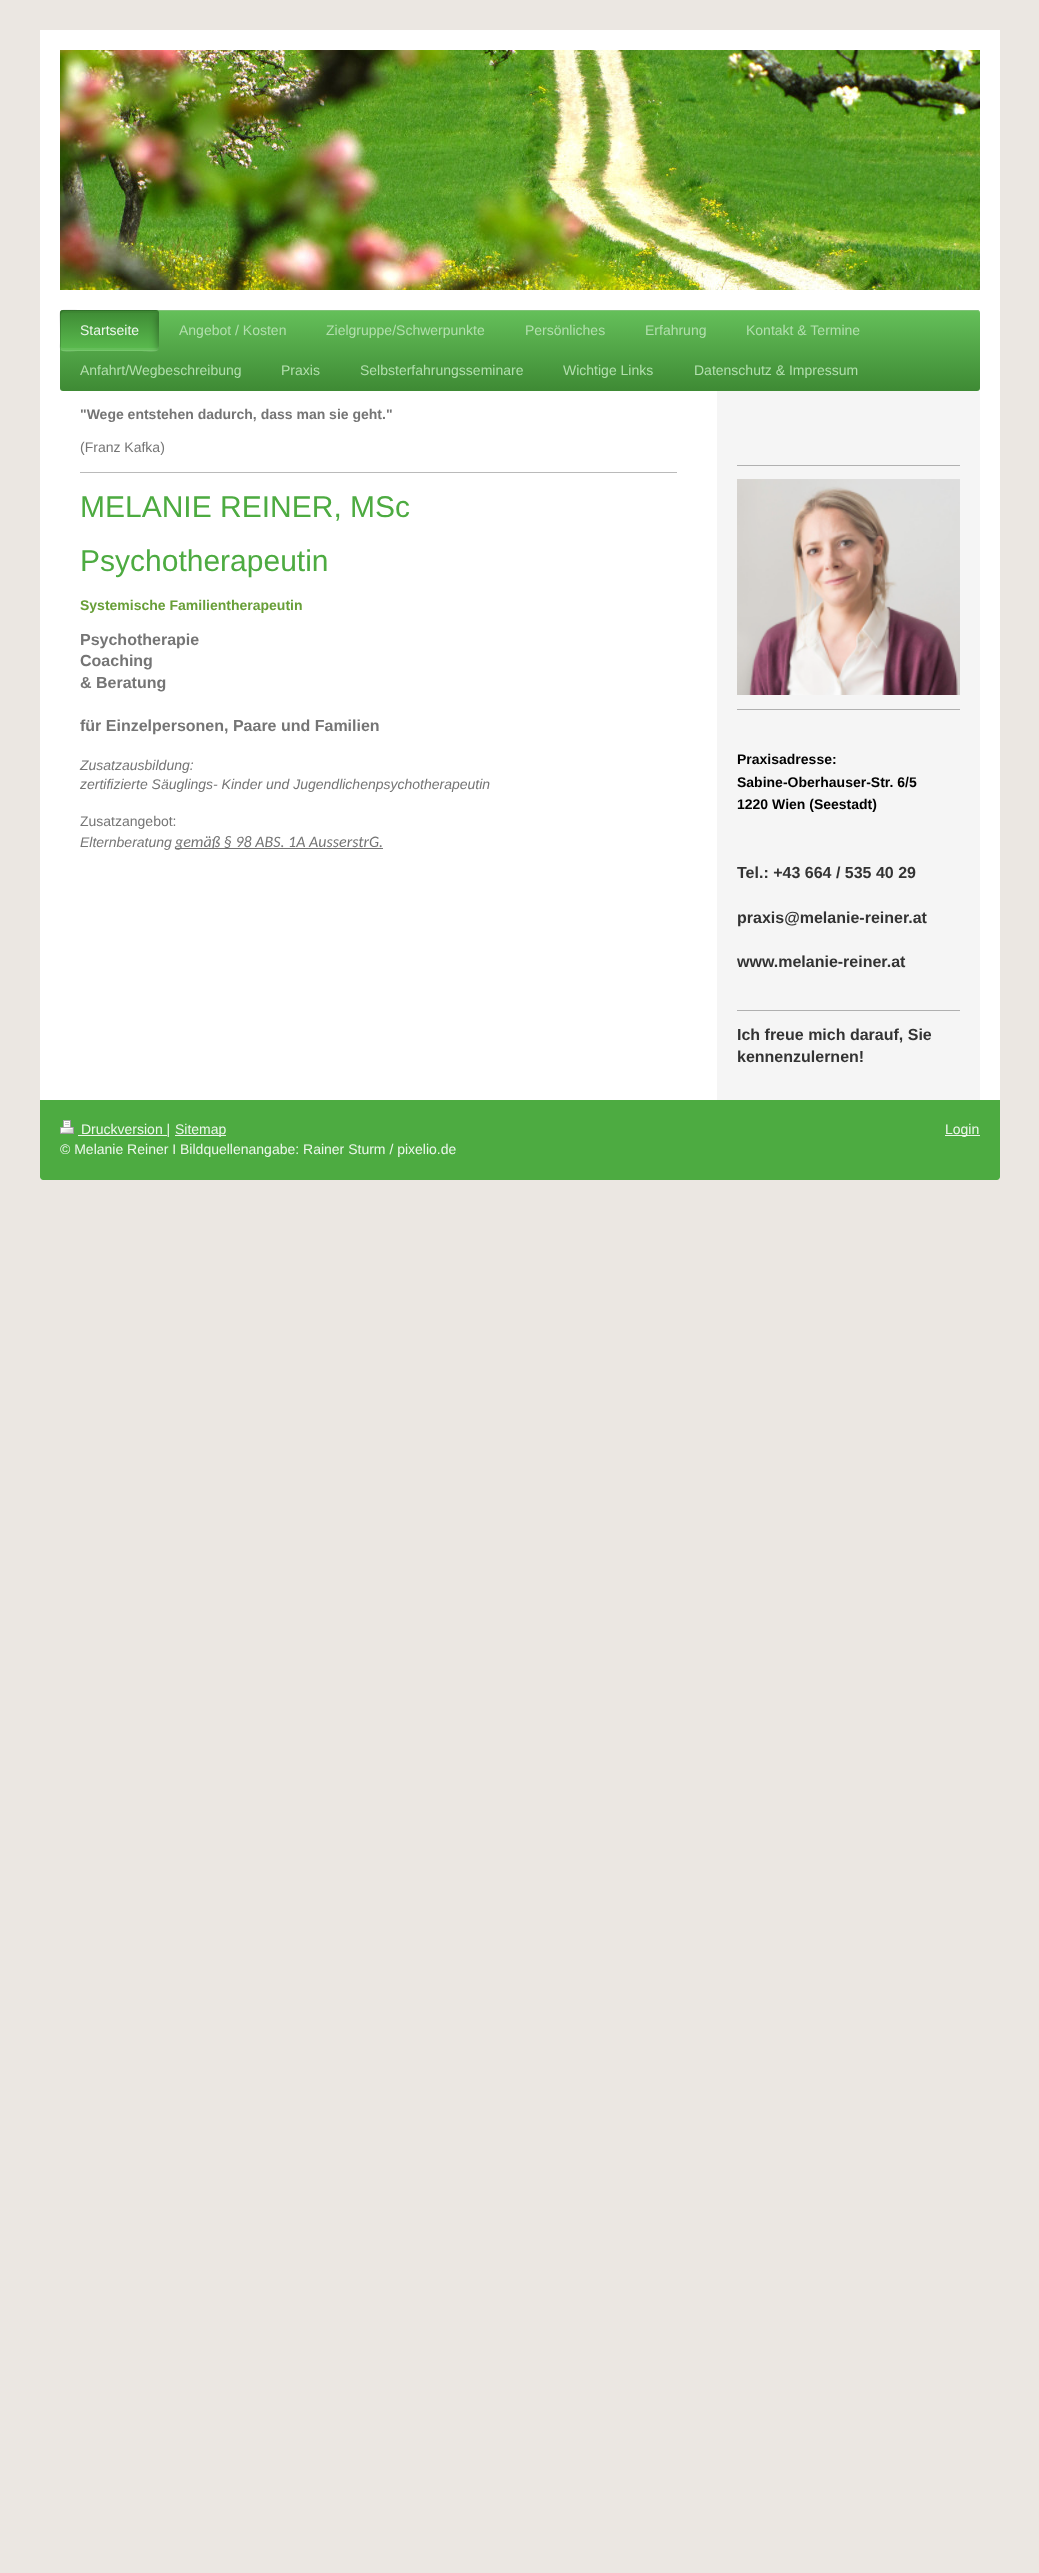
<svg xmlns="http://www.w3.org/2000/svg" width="1039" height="2573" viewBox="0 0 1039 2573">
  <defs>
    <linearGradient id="g1" gradientUnits="userSpaceOnUse" x1="60" y1="310" x2="60" y2="391"><stop offset="0" stop-color="rgb(101,192,90)"/><stop offset="1" stop-color="rgb(62,138,52)"/></linearGradient>
    <linearGradient id="g2" gradientUnits="userSpaceOnUse" x1="60" y1="351" x2="60" y2="310"><stop offset="0" stop-color="rgb(91,188,79)"/><stop offset="1" stop-color="rgb(62,138,52)"/></linearGradient>
    <clipPath id="clip1"><rect x="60" y="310" width="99" height="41" rx="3"/></clipPath>
    <clipPath id="clip2"><rect x="60" y="1120" width="920" height="40"/></clipPath>
  </defs>
  <rect width="100%" height="100%" fill="rgb(235,231,226)"/>
  <path d="M40 30H1000V1177C1000 1178.5 998.5 1180 997 1180H43C41.5 1180 40 1178.5 40 1177Z" fill="rgb(255,255,255)"/>
  <image x="60" y="50" width="920" height="240" href="pic1.png"/>
  <rect x="60" y="310" width="920" height="81" rx="3" fill="url(#g1)"/>
  <path d="M63 311H977C979 311 980 312 980 314C980 312 979 310 977 310H63C61 310 60 312 60 314C60 312 61 311 63 311Z" fill="rgb(129,193,121)"/>
  <rect x="60" y="310" width="99" height="41" rx="3" fill="url(#g2)"/>
  <path d="M64 311H158L156 310H78C55 310 60 307 60 330V342C60 344 59 349 61 350V320C61 317 60 311 64 311Z" fill="rgba(0,0,0,0.15)"/>
  <path d="M63 313H156C158 313 159 314 159 316V313C159 311 158 310 156 310H63C61 310 60 311 60 313V316C60 314 61 313 63 313Z" fill="rgba(0,0,0,0.04)"/>
  <path d="M60 345V348C60 350 61 351 63 351H156C158 351 159 350 159 348V345C159 347 158 348 156 348H63C61 348 60 347 60 345Z" fill="rgba(255,255,255,0.08)"/>
  <path d="M60 347C60 355 76 351 78 351H140C143 351 159 355 159 347C159 349 158 350 156 350H63C61 350 60 349 60 347Z" fill="rgba(255,255,255,0.1)"/>
  <text x="80" y="335" font-family="Liberation Sans" font-size="14" fill="rgb(237,247,236)">Startseite</text>
  <g clip-path="url(#clip1)">
    <rect x="157" y="312" width="16" height="41" rx="8" fill="rgba(0,0,0,0.3)" filter="blur(3.5px)"/>
  </g>
  <g font-family="Liberation Sans" font-size="14" fill="rgb(179,223,174)">
    <text x="179" y="335">Angebot / Kosten</text>
    <text x="326" y="335">Zielgruppe/Schwerpunkte</text>
    <text x="525" y="335">Persönliches</text>
    <text x="645" y="335">Erfahrung</text>
    <text x="746" y="335">Kontakt &amp; Termine</text>
    <text x="80" y="375">Anfahrt/Wegbeschreibung</text>
    <text x="281" y="375">Praxis</text>
    <text x="360" y="375">Selbsterfahrungsseminare</text>
    <text x="563" y="375">Wichtige Links</text>
    <text x="694" y="375">Datenschutz &amp; Impressum</text>
  </g>
  <text x="80" y="419" font-family="Liberation Sans" font-size="14" font-weight="bold" fill="rgb(117,117,117)">"Wege entstehen dadurch, dass man sie geht."</text>
  <text x="80" y="452" font-family="Liberation Sans" font-size="14" fill="rgb(117,117,117)">(Franz Kafka)</text>
  <rect x="80" y="472" width="597" height="1" fill="rgb(186,186,186)"/>
  <g font-family="Liberation Sans" font-size="30" fill="rgb(77,171,65)">
    <text>
      <tspan x="80" y="517">MELANIE REINER, MSc</tspan>
      <tspan x="80" y="571">Psychotherapeutin</tspan>
    </text>
  </g>
  <text x="80" y="610" font-family="Liberation Sans" font-size="14" font-weight="bold" fill="rgb(104,159,56)">Systemische Familientherapeutin</text>
  <g font-family="Liberation Sans" font-size="16" font-weight="bold" fill="rgb(117,117,117)">
    <text>
      <tspan x="80" y="645">Psychotherapie</tspan>
      <tspan x="80" y="666">Coaching</tspan>
      <tspan x="80" y="688">&amp; Beratung</tspan>
    </text>
    <text x="80" y="731">für Einzelpersonen, Paare und Familien</text>
  </g>
  <g font-family="Liberation Sans" font-size="14" font-style="italic" fill="rgb(117,117,117)">
    <text>
      <tspan x="80" y="770">Zusatzausbildung:</tspan>
      <tspan x="80" y="789">zertifizierte Säuglings- Kinder und Jugendlichenpsychotherapeutin</tspan>
    </text>
  </g>
  <text x="80" y="826" font-family="Liberation Sans" font-size="14" fill="rgb(117,117,117)">Zusatzangebot:</text>
  <text x="80" y="847" font-family="Liberation Sans" font-size="14" font-style="italic" fill="rgb(117,117,117)">Elternberatung</text>
  <rect x="175" y="848" width="208" height="1" fill="rgb(117,117,117)"/>
  <text x="175" y="847" font-family="Carlito" font-size="16" font-style="italic" fill="rgb(117,117,117)">gemäß § 98 ABS. 1A AusserstrG.</text>
  <rect x="717" y="391" width="263" height="709" fill="rgb(245,245,245)"/>
  <rect x="737" y="465" width="223" height="1" fill="rgb(176,176,176)"/>
  <image x="737" y="479" width="223" height="216" href="pic2.png"/>
  <rect x="737" y="709" width="223" height="1" fill="rgb(176,176,176)"/>
  <g font-family="Liberation Sans" font-size="14" font-weight="bold" fill="rgb(0,0,0)">
    <text>
      <tspan x="737" y="764">Praxisadresse:</tspan>
      <tspan x="737" y="787">Sabine-Oberhauser-Str. 6/5</tspan>
      <tspan x="737" y="809">1220 Wien (Seestadt)</tspan>
    </text>
  </g>
  <g font-family="Liberation Sans" font-size="16" font-weight="bold" fill="rgb(51,51,51)">
    <text x="737" y="878">Tel.: +43 664 / 535 40 29</text>
    <text x="737" y="923">praxis@melanie-reiner.at</text>
    <text x="737" y="967">www.melanie-reiner.at</text>
  </g>
  <rect x="737" y="1010" width="223" height="1" fill="rgb(176,176,176)"/>
  <g font-family="Liberation Sans" font-size="16" font-weight="bold" fill="rgb(51,51,51)">
    <text>
      <tspan x="737" y="1040">Ich freue mich darauf, Sie</tspan>
      <tspan x="737" y="1062">kennenzulernen!</tspan>
    </text>
  </g>
  <path d="M40 1100H1000V1177C1000 1178.5 998.5 1180 997 1180H43C41.5 1180 40 1178.5 40 1177Z" fill="rgb(77,171,65)"/>
  <image x="60" y="1120" width="14" height="14" href="pic3.png"/>
  <rect x="78" y="1135" width="89" height="1" fill="rgb(237,247,236)"/>
  <text x="81" y="1134" font-family="Liberation Sans" font-size="14" fill="rgb(237,247,236)">Druckversion |</text>
  <rect x="175" y="1135" width="51" height="1" fill="rgb(237,247,236)"/>
  <text x="175" y="1134" font-family="Liberation Sans" font-size="14" fill="rgb(237,247,236)">Sitemap</text>
  <g clip-path="url(#clip2)">
    <text x="60" y="1154" font-family="Liberation Sans" font-size="14" fill="rgb(237,247,236)">© Melanie Reiner I Bildquellenangabe: Rainer Sturm / pixelio.de</text>
  </g>
  <rect x="945" y="1135" width="35" height="1" fill="rgb(237,247,236)"/>
  <text x="945" y="1134" font-family="Liberation Sans" font-size="14" fill="rgb(237,247,236)">Login</text>
</svg>
